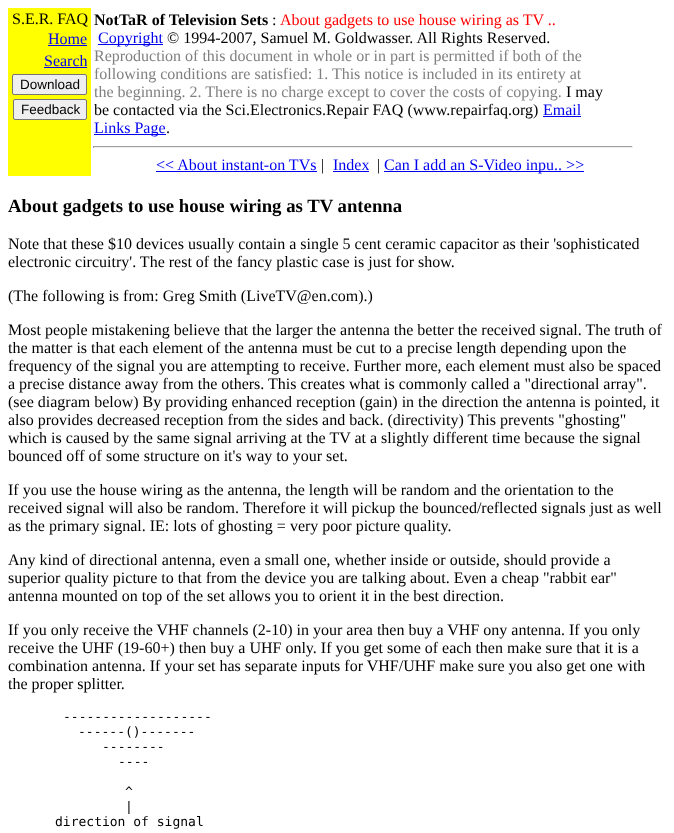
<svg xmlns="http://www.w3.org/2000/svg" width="674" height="833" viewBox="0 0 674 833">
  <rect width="100%" height="100%" fill="rgb(255,255,255)"/>
  <rect x="8" y="8" width="83" height="168" fill="rgb(255,255,0)"/>
  <text x="12" y="24" font-family="Liberation Serif" font-size="16" fill="rgb(0,0,0)">S.E.R. FAQ</text>
  <text x="48" y="44" font-family="Liberation Serif" font-size="16" fill="rgb(0,0,238)">Home</text>
  <rect x="48" y="45" width="39" height="1" fill="rgb(0,0,238)"/>
  <text x="44" y="66" font-family="Liberation Serif" font-size="16" fill="rgb(0,0,238)">Search</text>
  <rect x="44" y="67" width="43" height="1" fill="rgb(0,0,238)"/>
  <rect x="12.5" y="74.5" width="74" height="20" rx="1.5" fill="rgb(239,239,239)" stroke="rgb(118,118,118)"/>
  <text x="20" y="89" font-family="Liberation Sans" font-size="13.5" fill="rgb(0,0,0)">Download</text>
  <rect x="13.5" y="99.5" width="73" height="20" rx="1.5" fill="rgb(239,239,239)" stroke="rgb(118,118,118)"/>
  <text x="21" y="114" font-family="Liberation Sans" font-size="13.5" fill="rgb(0,0,0)">Feedback</text>
  <text x="94" y="25" font-family="Liberation Serif" font-size="16" font-weight="bold" fill="rgb(0,0,0)">NotTaR of Television Sets</text>
  <text x="272" y="25" font-family="Liberation Serif" font-size="16" fill="rgb(0,0,0)">:</text>
  <text x="280" y="25" font-family="Liberation Serif" font-size="16" fill="rgb(255,0,0)">About gadgets to use house wiring as TV ..</text>
  <rect x="98" y="44" width="65" height="1" fill="rgb(0,0,238)"/>
  <text x="98" y="43" font-family="Liberation Serif" font-size="16" fill="rgb(0,0,238)">Copyright</text>
  <text x="167" y="43" font-family="Liberation Serif" font-size="16" fill="rgb(0,0,0)">© 1994-2007, Samuel M. Goldwasser. All Rights Reserved.</text>
  <g font-family="Liberation Serif" font-size="16" fill="rgb(128,128,128)">
    <text>
      <tspan x="94" y="61">Reproduction of this document in whole or in part is permitted if both of the</tspan>
      <tspan x="94" y="79">following conditions are satisfied: 1. This notice is included in its entirety at</tspan>
      <tspan x="94" y="97">the beginning. 2. There is no charge except to cover the costs of copying.</tspan>
    </text>
  </g>
  <g font-family="Liberation Serif" font-size="16" fill="rgb(0,0,0)">
    <text x="566" y="97">I may</text>
    <text x="94" y="115">be contacted via the Sci.Electronics.Repair FAQ (www.repairfaq.org)</text>
  </g>
  <text x="543" y="115" font-family="Liberation Serif" font-size="16" fill="rgb(0,0,238)">Email</text>
  <rect x="543" y="116" width="38" height="1" fill="rgb(0,0,238)"/>
  <rect x="94" y="134" width="72" height="1" fill="rgb(0,0,238)"/>
  <text x="94" y="133" font-family="Liberation Serif" font-size="16" fill="rgb(0,0,238)">Links Page</text>
  <text x="166" y="133" font-family="Liberation Serif" font-size="16" fill="rgb(0,0,0)">.</text>
  <rect x="93" y="146" width="540" height="1" fill="rgb(159,159,159)"/>
  <rect x="632" y="146" width="1" height="2" fill="rgb(238,238,238)"/>
  <rect x="93" y="147" width="540" height="1" fill="rgb(238,238,238)"/>
  <rect x="93" y="146" width="1" height="2" fill="rgb(159,159,159)"/>
  <text x="156" y="170" font-family="Liberation Serif" font-size="16" fill="rgb(0,0,238)">&lt;&lt; About instant-on TVs</text>
  <rect x="156" y="171" width="161" height="1" fill="rgb(0,0,238)"/>
  <text x="321" y="170" font-family="Liberation Serif" font-size="16" fill="rgb(0,0,0)">|</text>
  <text x="333" y="170" font-family="Liberation Serif" font-size="16" fill="rgb(0,0,238)">Index</text>
  <rect x="333" y="171" width="36" height="1" fill="rgb(0,0,238)"/>
  <text x="377" y="170" font-family="Liberation Serif" font-size="16" fill="rgb(0,0,0)">|</text>
  <rect x="384" y="171" width="200" height="1" fill="rgb(0,0,238)"/>
  <text x="384" y="170" font-family="Liberation Serif" font-size="16" fill="rgb(0,0,238)">Can I add an S-Video inpu.. &gt;&gt;</text>
  <text x="8" y="212" font-family="Liberation Serif" font-size="18.75" font-weight="bold" fill="rgb(0,0,0)">About gadgets to use house wiring as TV antenna</text>
  <g font-family="Liberation Serif" font-size="16" fill="rgb(0,0,0)">
    <text>
      <tspan x="8" y="249">Note that these $10 devices usually contain a single 5 cent ceramic capacitor as their 'sophisticated</tspan>
      <tspan x="8" y="267">electronic circuitry'. The rest of the fancy plastic case is just for show.</tspan>
    </text>
    <text x="8" y="301">(The following is from: Greg Smith (LiveTV@en.com).)</text>
    <text>
      <tspan x="8" y="335">Most people mistakening believe that the larger the antenna the better the received signal. The truth of</tspan>
      <tspan x="8" y="353">the matter is that each element of the antenna must be cut to a precise length depending upon the</tspan>
      <tspan x="8" y="371">frequency of the signal you are attempting to receive. Further more, each element must also be spaced</tspan>
      <tspan x="8" y="389">a precise distance away from the others. This creates what is commonly called a "directional array".</tspan>
      <tspan x="8" y="407">(see diagram below) By providing enhanced reception (gain) in the direction the antenna is pointed, it</tspan>
      <tspan x="8" y="425">also provides decreased reception from the sides and back. (directivity) This prevents "ghosting"</tspan>
      <tspan x="8" y="443">which is caused by the same signal arriving at the TV at a slightly different time because the signal</tspan>
      <tspan x="8" y="461">bounced off of some structure on it's way to your set.</tspan>
    </text>
    <text>
      <tspan x="8" y="495">If you use the house wiring as the antenna, the length will be random and the orientation to the</tspan>
      <tspan x="8" y="513">received signal will also be random. Therefore it will pickup the bounced/reflected signals just as well</tspan>
      <tspan x="8" y="531">as the primary signal. IE: lots of ghosting = very poor picture quality.</tspan>
    </text>
    <text>
      <tspan x="8" y="565">Any kind of directional antenna, even a small one, whether inside or outside, should provide a</tspan>
      <tspan x="8" y="583">superior quality picture to that from the device you are talking about. Even a cheap "rabbit ear"</tspan>
      <tspan x="8" y="601">antenna mounted on top of the set allows you to orient it in the best direction.</tspan>
    </text>
    <text>
      <tspan x="8" y="635">If you only receive the VHF channels (2-10) in your area then buy a VHF ony antenna. If you only</tspan>
      <tspan x="8" y="653">receive the UHF (19-60+) then buy a UHF only. If you get some of each then make sure that it is a</tspan>
      <tspan x="8" y="671">combination antenna. If your set has separate inputs for VHF/UHF make sure you also get one with</tspan>
      <tspan x="8" y="689">the proper splitter.</tspan>
    </text>
  </g>
  <g font-family="DejaVu Sans Mono" font-size="13" fill="rgb(0,0,0)">
    <text x="63" y="721">-------------------</text>
    <text x="78" y="736">------()-------</text>
    <text x="102" y="751">--------</text>
    <text x="118" y="766">----</text>
    <text>
      <tspan x="125" y="796">^</tspan>
      <tspan x="125" y="811">|</tspan>
    </text>
    <text x="55" y="826">direction of signal</text>
  </g>
</svg>
